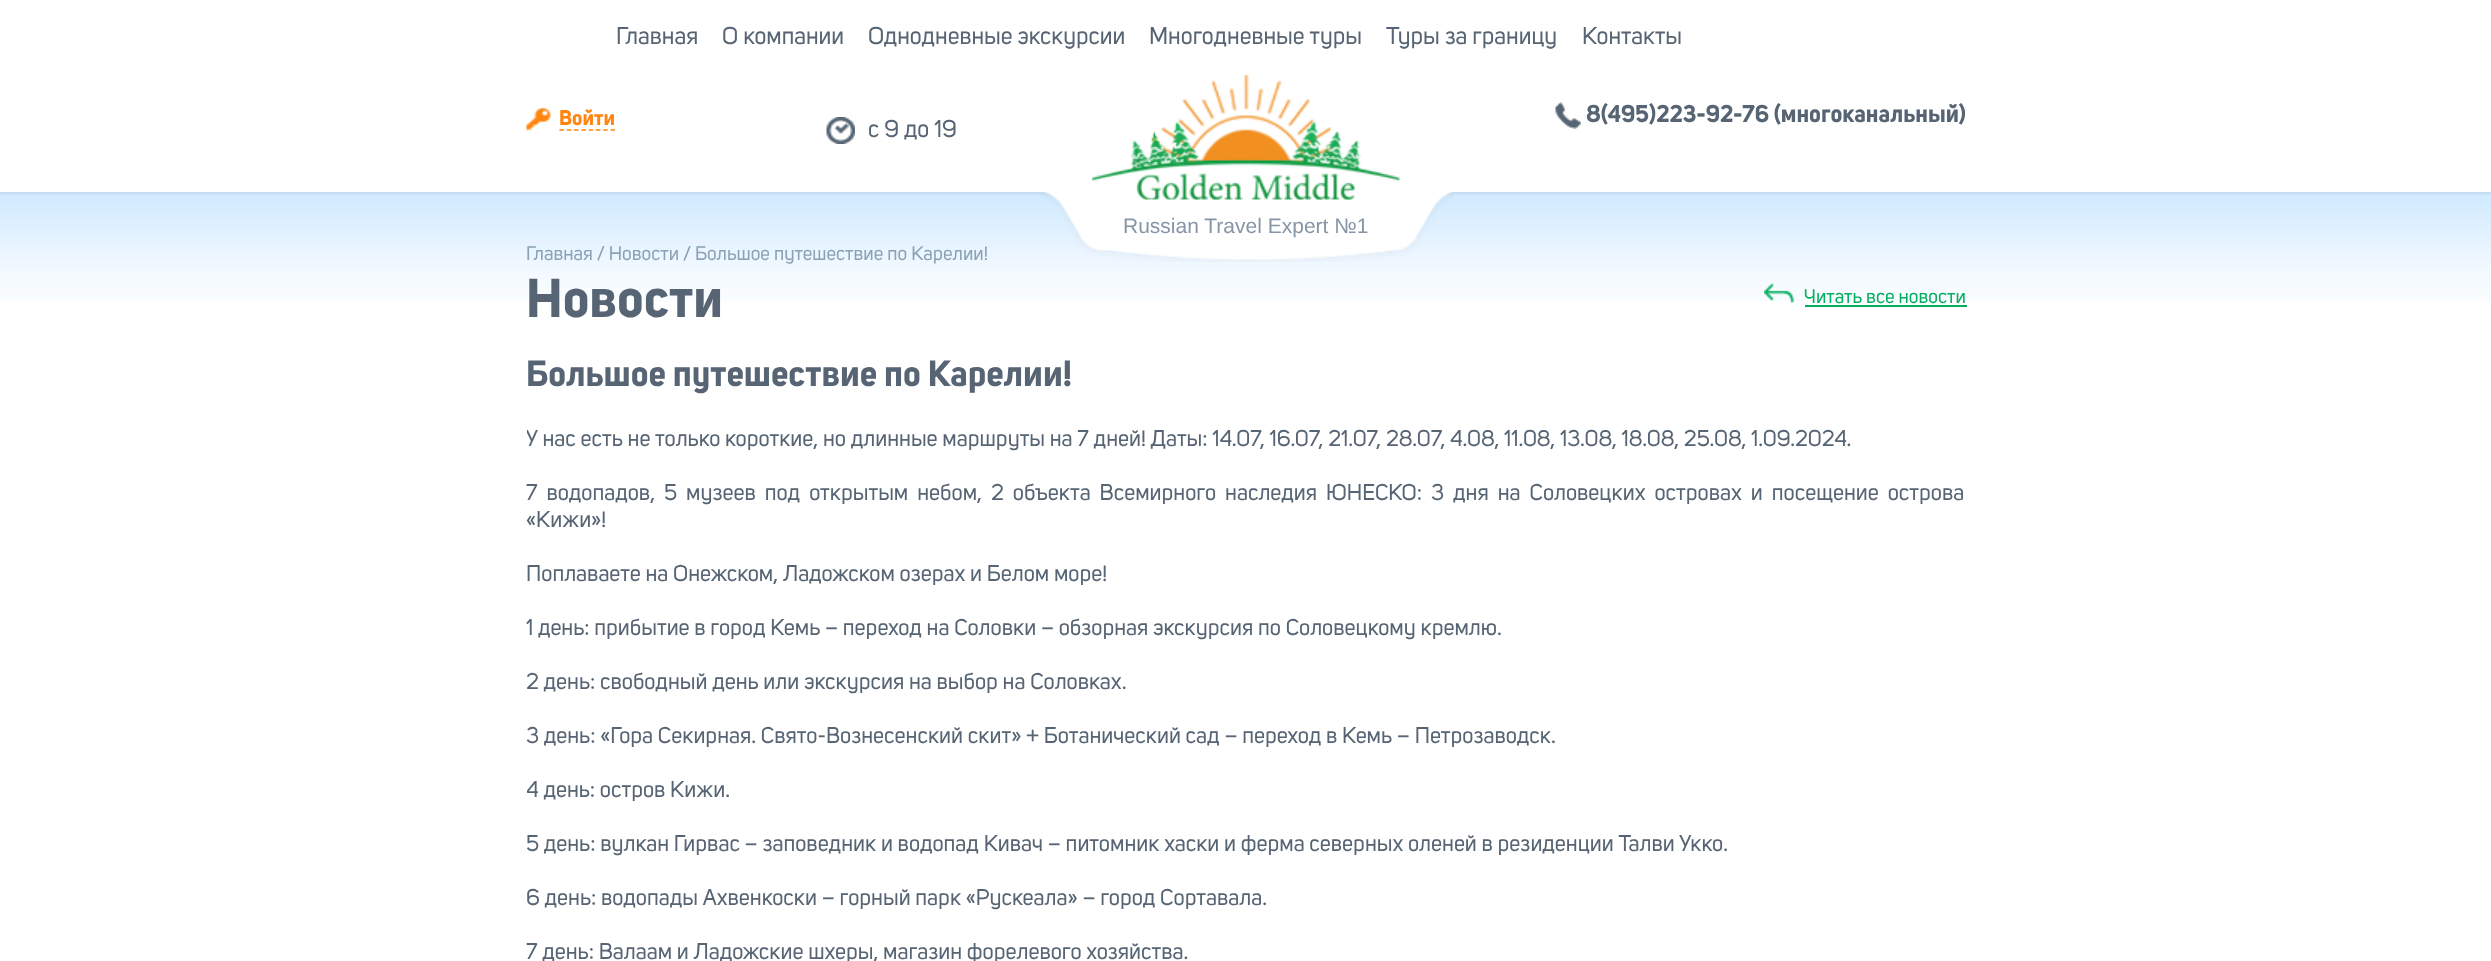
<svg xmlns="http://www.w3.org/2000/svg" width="2491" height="961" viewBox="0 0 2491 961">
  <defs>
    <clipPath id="clip1"><rect x="527" y="356" width="1440" height="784"/></clipPath>
  </defs>
  <rect width="100%" height="100%" fill="rgb(255,255,255)"/>
  <image x="0" y="192" width="2491" height="109" href="pic1.png"/>
  <rect x="0" y="2" width="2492" height="192" fill="rgba(0,0,0,0.06)" filter="blur(1px)"/>
  <rect x="0" y="1" width="2491" height="191" fill="rgb(255,255,255)"/>
  <g font-family="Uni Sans" font-size="24" fill="rgb(86,100,115)">
    <text x="616" y="44">Главная</text>
    <text x="722" y="44">О компании</text>
    <text x="868" y="44">Однодневные экскурсии</text>
    <text x="1149" y="44">Многодневные туры</text>
    <text x="1386" y="44">Туры за границу</text>
    <text x="1582" y="44">Контакты</text>
  </g>
  <image x="526" y="108" width="25" height="23" href="pic2.png"/>
  <text x="559" y="125" font-family="Uni Sans" font-size="21" font-weight="bold" fill="rgb(255,133,14)">Войти</text>
  <path d="M559.5 130H615" fill="none" stroke="rgb(255,133,14)" stroke-width="1.5" stroke-dasharray="4.5 2.79"/>
  <image x="826" y="117" width="29" height="27" href="pic3.png"/>
  <text x="868" y="137" font-family="Uni Sans" font-size="24" fill="rgb(86,100,115)">c 9 до 19</text>
  <image x="1555" y="102" width="26" height="27" href="pic4.png"/>
  <text x="1586" y="122" font-family="Uni Sans" font-size="24" font-weight="bold" fill="rgb(86,100,115)">8(495)223-92-76 (многоканальный)</text>
  <image x="1040" y="192" width="414" height="70" href="pic5.png"/>
  <image x="1092" y="74" width="308" height="126" href="pic6.png"/>
  <text x="1123" y="233" font-family="Liberation Sans" font-size="21" fill="rgb(134,150,167)">Russian Travel Expert №1</text>
  <text x="526" y="260" font-family="Uni Sans" font-size="19.5" fill="rgb(138,162,181)">Главная / Новости / Большое путешествие по Карелии!</text>
  <text x="526" y="317" font-family="Uni Sans" font-size="54" font-weight="bold" fill="rgb(86,100,115)">Новости</text>
  <image x="1764" y="283" width="30" height="20" href="pic7.png"/>
  <text x="1804" y="303" font-family="Uni Sans" font-size="19.5" fill="rgb(2,174,95)">Читать все новости</text>
  <rect x="1805" y="305" width="162" height="2" fill="rgb(2,174,95)"/>
  <text x="526" y="386" font-family="Uni Sans" font-size="36" font-weight="bold" fill="rgb(86,100,115)">Большое путешествие по Карелии!</text>
  <g clip-path="url(#clip1)">
    <text x="526" y="446" font-family="Uni Sans" font-size="22.5" fill="rgb(86,100,115)">У нас есть не только короткие, но длинные маршруты на 7 дней! Даты: 14.07, 16.07, 21.07, 28.07, 4.08, 11.08, 13.08, 18.08, 25.08, 1.09.2024.</text>
  </g>
  <g font-family="Uni Sans" font-size="22.5" fill="rgb(86,100,115)">
    <text>
      <tspan x="526" y="500" word-spacing="4.25">7 водопадов, 5 музеев под открытым небом, 2 объекта Всемирного наследия ЮНЕСКО: 3 дня на Соловецких островах и посещение острова</tspan>
      <tspan x="526" y="527">«Кижи»!</tspan>
    </text>
    <text x="526" y="581">Поплаваете на Онежском, Ладожском озерах и Белом море!</text>
    <text x="526" y="635">1 день: прибытие в город Кемь – переход на Соловки – обзорная экскурсия по Соловецкому кремлю.</text>
  </g>
  <g clip-path="url(#clip1)">
    <text x="526" y="689" font-family="Uni Sans" font-size="22.5" fill="rgb(86,100,115)">2 день: свободный день или экскурсия на выбор на Соловках.</text>
  </g>
  <text x="526" y="743" font-family="Uni Sans" font-size="22.5" fill="rgb(86,100,115)">3 день: «Гора Секирная. Свято-Вознесенский скит» + Ботанический сад – переход в Кемь – Петрозаводск.</text>
  <g clip-path="url(#clip1)">
    <text x="526" y="797" font-family="Uni Sans" font-size="22.5" fill="rgb(86,100,115)">4 день: остров Кижи.</text>
  </g>
  <g font-family="Uni Sans" font-size="22.5" fill="rgb(86,100,115)">
    <text x="526" y="851">5 день: вулкан Гирвас – заповедник и водопад Кивач – питомник хаски и ферма северных оленей в резиденции Талви Укко.</text>
    <text x="526" y="905">6 день: водопады Ахвенкоски – горный парк «Рускеала» – город Сортавала.</text>
    <text x="526" y="959">7 день: Валаам и Ладожские шхеры, магазин форелевого хозяйства.</text>
  </g>
</svg>
